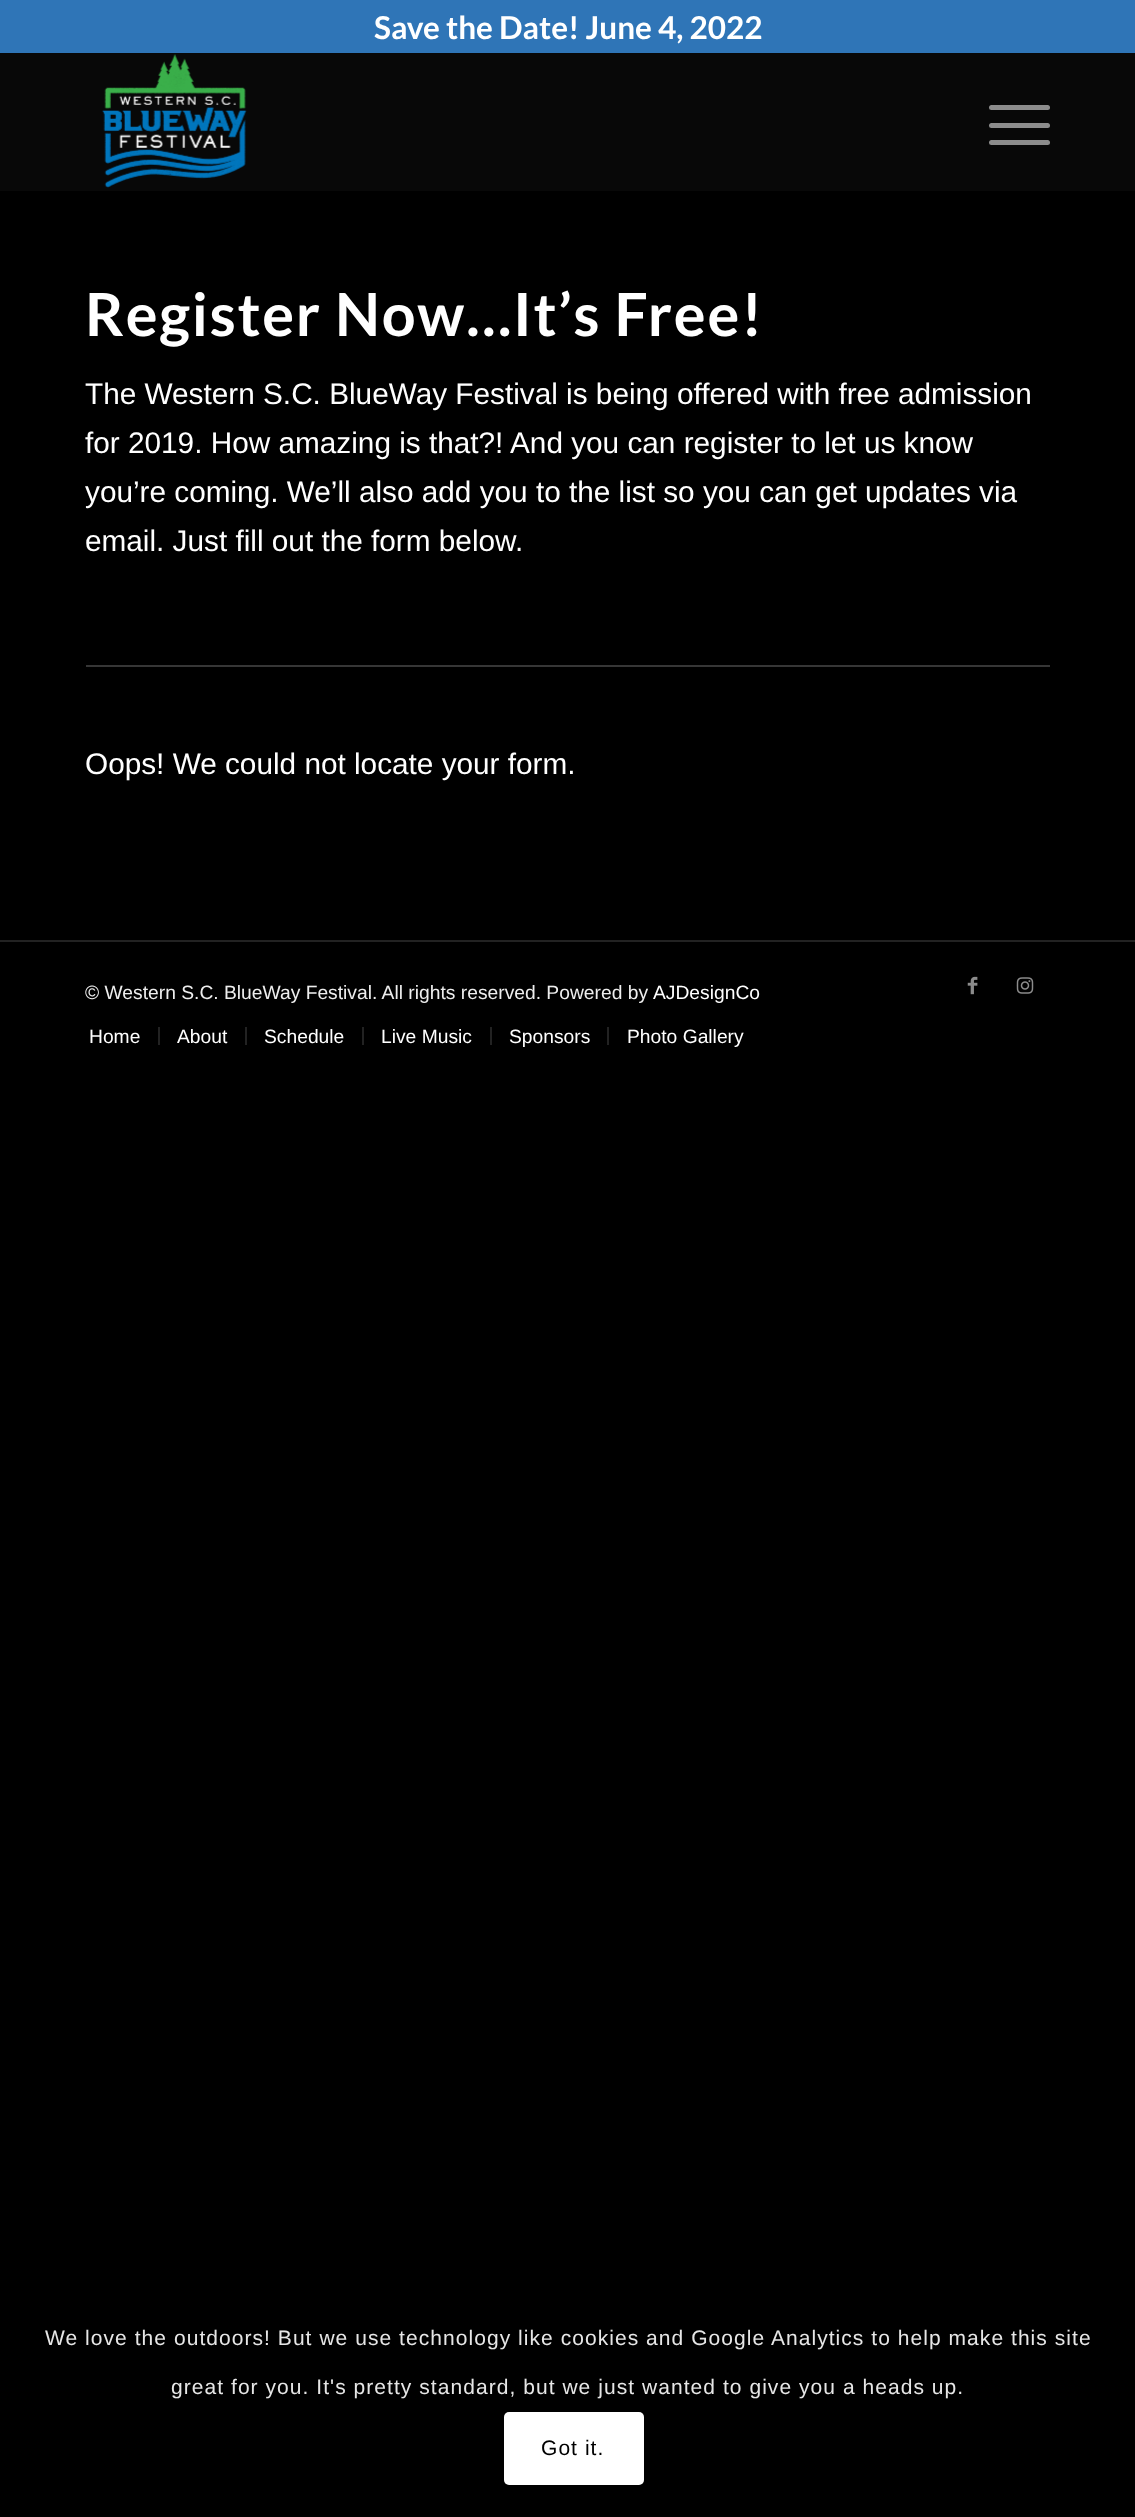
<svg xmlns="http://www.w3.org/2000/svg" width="1135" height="2517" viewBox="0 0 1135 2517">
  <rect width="100%" height="100%" fill="rgb(0,0,0)"/>
  <rect x="0" y="0" width="1135" height="53" fill="rgb(47,117,183)"/>
  <text x="374" y="39" font-family="Lato" font-size="31.5" font-weight="bold" fill="rgb(255,255,255)">Save the Date! June 4, 2022</text>
  <rect x="0" y="53" width="1135" height="138" fill="rgb(8,8,8)"/>
  <image x="102" y="54" width="145" height="134" href="pic1.png"/>
  <rect x="989" y="123" width="61" height="5" rx="2.5" fill="rgb(140,140,140)"/>
  <rect x="989" y="105" width="61" height="5" rx="2.5" fill="rgb(140,140,140)"/>
  <rect x="989" y="140" width="61" height="5" rx="2.5" fill="rgb(140,140,140)"/>
  <text x="85" y="336" font-family="Lato" font-size="59.5" font-weight="bold" letter-spacing="1.75" fill="rgb(255,255,255)">Register Now…It’s Free!</text>
  <g font-family="Liberation Sans" font-size="29.75" fill="rgb(255,255,255)">
    <text>
      <tspan x="85" y="404">The Western S.C. BlueWay Festival is being offered with free admission</tspan>
      <tspan x="85" y="453">for 2019. How amazing is that?! And you can register to let us know</tspan>
      <tspan x="85" y="502">you’re coming. We’ll also add you to the list so you can get updates via</tspan>
      <tspan x="85" y="551">email. Just fill out the form below.</tspan>
    </text>
  </g>
  <rect x="86" y="665" width="964" height="2" fill="rgb(54,54,54)"/>
  <text x="85" y="774" font-family="Liberation Sans" font-size="29.75" fill="rgb(255,255,255)">Oops! We could not locate your form.</text>
  <rect x="0" y="940" width="1135" height="2" fill="rgb(34,34,34)"/>
  <text x="85" y="999" font-family="Liberation Sans" font-size="19.25" fill="rgb(238,238,238)">© Western S.C. BlueWay Festival. All rights reserved. Powered by</text>
  <text x="653" y="999" font-family="Liberation Sans" font-size="19.25" fill="rgb(255,255,255)">AJDesignCo</text>
  <image x="967" y="976" width="11" height="19" href="pic2.png"/>
  <image x="1016" y="977" width="18" height="17" href="pic3.png"/>
  <text x="89" y="1043" font-family="Liberation Sans" font-size="19.25" fill="rgb(255,255,255)">Home</text>
  <rect x="158" y="1027" width="2" height="18" fill="rgb(34,34,34)"/>
  <text x="177" y="1043" font-family="Liberation Sans" font-size="19.25" fill="rgb(255,255,255)">About</text>
  <rect x="245" y="1027" width="2" height="18" fill="rgb(34,34,34)"/>
  <text x="264" y="1043" font-family="Liberation Sans" font-size="19.25" fill="rgb(255,255,255)">Schedule</text>
  <rect x="362" y="1027" width="2" height="18" fill="rgb(34,34,34)"/>
  <text x="381" y="1043" font-family="Liberation Sans" font-size="19.25" fill="rgb(255,255,255)">Live Music</text>
  <rect x="490" y="1027" width="2" height="18" fill="rgb(34,34,34)"/>
  <text x="509" y="1043" font-family="Liberation Sans" font-size="19.25" fill="rgb(255,255,255)">Sponsors</text>
  <rect x="607" y="1027" width="2" height="18" fill="rgb(34,34,34)"/>
  <text x="627" y="1043" font-family="Liberation Sans" font-size="19.25" fill="rgb(255,255,255)">Photo Gallery</text>
  <g font-family="Liberation Sans" font-size="21" letter-spacing="1.05" fill="rgb(230,230,230)">
    <text x="45" y="2345">We love the outdoors! But we use technology like cookies and Google Analytics to help make this site</text>
    <text x="171" y="2394">great for you. It's pretty standard, but we just wanted to give you a heads up.</text>
  </g>
  <rect x="504" y="2412" width="140" height="73" rx="5" fill="rgb(255,255,255)"/>
  <text x="541" y="2455" font-family="Liberation Sans" font-size="21" letter-spacing="1.05" fill="rgb(0,0,0)">Got it.</text>
</svg>
